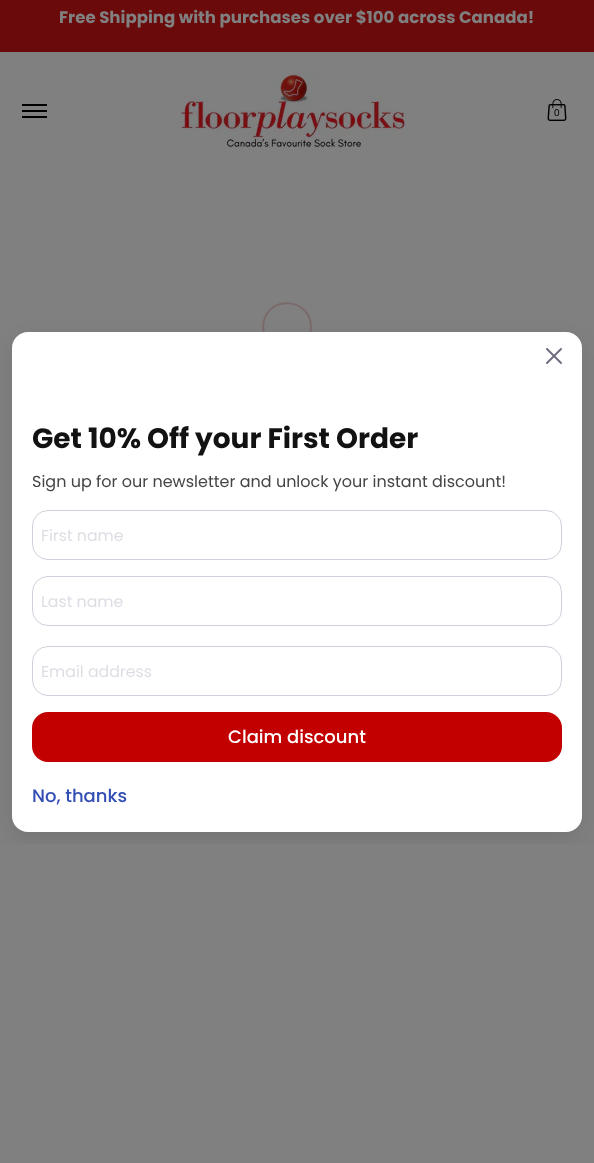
<svg xmlns="http://www.w3.org/2000/svg" width="594" height="1163" viewBox="0 0 594 1163">
  <defs>
    <clipPath id="clip1"><rect x="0" y="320" width="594" height="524"/></clipPath>
  </defs>
  <rect width="100%" height="100%" fill="rgb(128,128,128)"/>
  <rect x="0" y="0" width="594" height="52" fill="rgb(107,10,10)"/>
  <text x="59" y="23" font-family="Poppins" font-size="16.6" font-weight="bold" fill="rgb(128,128,128)">Free Shipping with purchases over $100 across Canada!</text>
  <rect x="22" y="104" width="25" height="2" fill="rgb(0,0,0)"/>
  <rect x="22" y="116" width="25" height="2" fill="rgb(0,0,0)"/>
  <rect x="22" y="110" width="25" height="2" fill="rgb(0,0,0)"/>
  <image x="180" y="72" width="228" height="76" href="pic1.png"/>
  <image x="547" y="99" width="20" height="22" href="pic2.png"/>
  <text x="554" y="116" font-family="Liberation Sans" font-size="10" fill="rgb(0,0,0)">0</text>
  <path d="M270 344C264.5 338.5 262 330 263.5 322.5C269 294 311 298.5 311 327C311 333.5 308.5 339.5 304 344" fill="none" stroke="rgb(124,106,106)" stroke-width="2"/>
  <g clip-path="url(#clip1)">
    <rect x="12" y="340" width="570" height="500" rx="16" fill="rgba(18,17,39,0.1)" filter="blur(10px)"/>
  </g>
  <rect x="12" y="332" width="570" height="500" rx="16" fill="rgb(255,255,255)"/>
  <image x="546" y="348" width="16" height="16" href="pic3.png"/>
  <text x="32" y="448" font-family="Poppins" font-size="28" font-weight="bold" fill="rgb(18,18,18)">Get 10% Off your First Order</text>
  <text x="32" y="487" font-family="Poppins" font-size="16" fill="rgb(69,69,69)">Sign up for our newsletter and unlock your instant discount!</text>
  <rect x="32.5" y="510.5" width="529" height="49" rx="15.5" fill="none" stroke="rgb(209,209,219)"/>
  <text x="41" y="541" font-family="Poppins" font-size="15.75" fill="rgb(221,221,228)">First name</text>
  <rect x="32.5" y="576.5" width="529" height="49" rx="15.5" fill="none" stroke="rgb(209,209,219)"/>
  <text x="41" y="607" font-family="Poppins" font-size="15.75" fill="rgb(221,221,228)">Last name</text>
  <rect x="32.5" y="646.5" width="529" height="49" rx="15.5" fill="none" stroke="rgb(209,209,219)"/>
  <text x="41" y="677" font-family="Poppins" font-size="15.75" fill="rgb(221,221,228)">Email address</text>
  <rect x="32" y="712" width="530" height="50" rx="16" fill="rgb(195,0,0)"/>
  <text x="228" y="743" font-family="Poppins" font-size="18" font-weight="500" fill="rgb(255,255,255)">Claim discount</text>
  <text x="32" y="802" font-family="Poppins" font-size="18" font-weight="500" fill="rgb(51,79,180)">No, thanks</text>
</svg>
